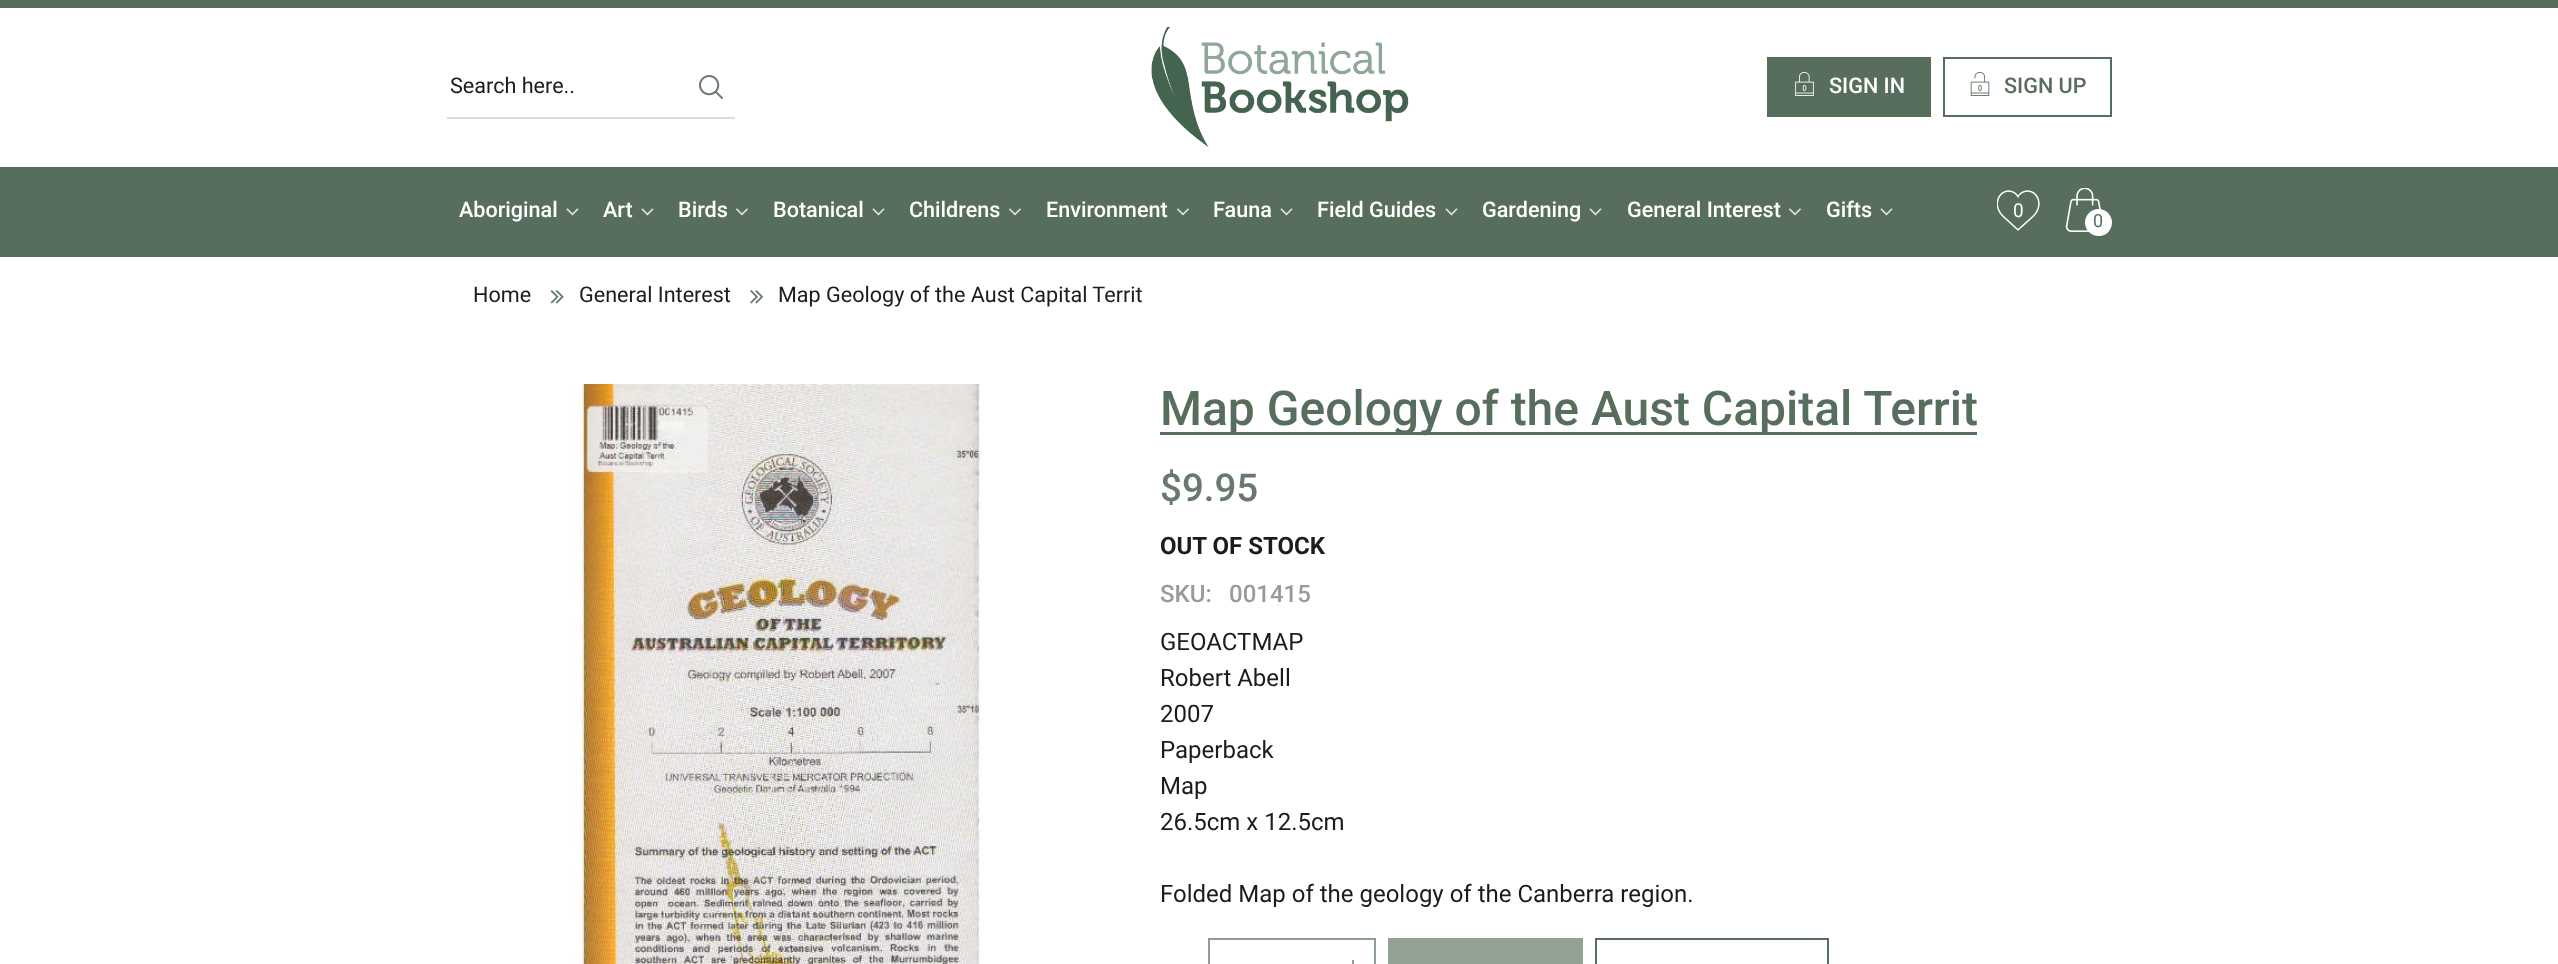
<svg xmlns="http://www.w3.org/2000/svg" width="2558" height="964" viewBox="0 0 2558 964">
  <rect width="100%" height="100%" fill="rgb(255,255,255)"/>
  <rect x="0" y="0" width="2558" height="8" fill="rgb(86,110,91)"/>
  <rect x="447" y="117" width="288" height="2" fill="rgb(218,220,224)"/>
  <text x="450" y="93" font-family="Roboto" font-size="21.6" fill="rgb(28,28,28)">Search here..</text>
  <image x="699" y="75" width="24" height="24" href="pic1.png"/>
  <image x="1151" y="27" width="258" height="120" href="pic2.png"/>
  <rect x="1768" y="58" width="162" height="58" fill="none" stroke="rgb(86,110,91)" stroke-width="2"/>
  <rect x="1769" y="59" width="160" height="56" fill="rgb(86,110,91)"/>
  <image x="1795" y="72" width="19" height="24" href="pic3.png"/>
  <text x="1829" y="93" font-family="Roboto" font-size="21.6" font-weight="500" fill="rgb(255,255,255)">SIGN IN</text>
  <rect x="1944" y="58" width="167" height="58" fill="none" stroke="rgb(86,110,91)" stroke-width="2"/>
  <image x="1970" y="72" width="20" height="24" href="pic4.png"/>
  <text x="2004" y="93" font-family="Roboto" font-size="21.6" font-weight="500" fill="rgb(86,110,91)">SIGN UP</text>
  <rect x="0" y="167" width="2558" height="90" fill="rgb(86,110,91)"/>
  <text x="459" y="217" font-family="Roboto" font-size="21.6" font-weight="500" fill="rgb(255,255,255)">Aboriginal</text>
  <image x="566" y="208" width="13" height="8" href="pic5.png"/>
  <text x="603" y="217" font-family="Roboto" font-size="21.6" font-weight="500" fill="rgb(255,255,255)">Art</text>
  <image x="641" y="208" width="13" height="8" href="pic5.png"/>
  <text x="678" y="217" font-family="Roboto" font-size="21.6" font-weight="500" fill="rgb(255,255,255)">Birds</text>
  <image x="736" y="208" width="12" height="8" href="pic6.png"/>
  <text x="773" y="217" font-family="Roboto" font-size="21.6" font-weight="500" fill="rgb(255,255,255)">Botanical</text>
  <image x="872" y="208" width="13" height="8" href="pic5.png"/>
  <text x="909" y="217" font-family="Roboto" font-size="21.6" font-weight="500" fill="rgb(255,255,255)">Childrens</text>
  <image x="1009" y="208" width="12" height="8" href="pic6.png"/>
  <text x="1046" y="217" font-family="Roboto" font-size="21.6" font-weight="500" fill="rgb(255,255,255)">Environment</text>
  <image x="1177" y="208" width="12" height="8" href="pic6.png"/>
  <text x="1213" y="217" font-family="Roboto" font-size="21.6" font-weight="500" fill="rgb(255,255,255)">Fauna</text>
  <image x="1280" y="208" width="13" height="8" href="pic5.png"/>
  <text x="1317" y="217" font-family="Roboto" font-size="21.6" font-weight="500" fill="rgb(255,255,255)">Field Guides</text>
  <image x="1445" y="208" width="13" height="8" href="pic5.png"/>
  <text x="1482" y="217" font-family="Roboto" font-size="21.6" font-weight="500" fill="rgb(255,255,255)">Gardening</text>
  <image x="1589" y="208" width="13" height="8" href="pic5.png"/>
  <text x="1627" y="217" font-family="Roboto" font-size="21.6" font-weight="500" fill="rgb(255,255,255)">General Interest</text>
  <image x="1789" y="208" width="12" height="8" href="pic6.png"/>
  <text x="1826" y="217" font-family="Roboto" font-size="21.6" font-weight="500" fill="rgb(255,255,255)">Gifts</text>
  <image x="1880" y="208" width="13" height="8" href="pic5.png"/>
  <image x="1997" y="190" width="43" height="41" href="pic7.png"/>
  <text x="2013" y="217" font-family="Roboto" font-size="19" fill="rgb(255,255,255)">0</text>
  <image x="2065" y="188" width="46" height="48" href="pic8.png"/>
  <circle cx="2098.5" cy="222.5" r="13.5" fill="rgb(255,255,255)"/>
  <text x="2093" y="227" font-family="Roboto" font-size="18" fill="rgb(86,110,91)">0</text>
  <text x="473" y="302" font-family="Roboto" font-size="21.6" fill="rgb(28,28,28)">Home</text>
  <image x="550" y="290" width="14" height="14" href="pic9.png"/>
  <text x="579" y="302" font-family="Roboto" font-size="21.6" fill="rgb(28,28,28)">General Interest</text>
  <image x="750" y="290" width="14" height="14" href="pic10.png"/>
  <text x="778" y="302" font-family="Roboto" font-size="21.6" fill="rgb(28,28,28)">Map Geology of the Aust Capital Territ</text>
  <image x="572" y="384" width="409" height="580" href="pic11.png"/>
  <rect x="1160" y="432" width="817" height="3" fill="rgb(86,110,91)"/>
  <text x="1160" y="425" font-family="Roboto" font-size="48" font-weight="500" fill="rgb(86,110,91)">Map Geology of the Aust Capital Territ</text>
  <text x="1160" y="501" font-family="Roboto" font-size="38.5" font-weight="500" fill="rgb(105,121,108)">$9.95</text>
  <text x="1160" y="554" font-family="Roboto" font-size="24" font-weight="bold" fill="rgb(28,28,28)">OUT OF STOCK</text>
  <g font-family="Roboto" font-size="24" font-weight="500" fill="rgb(154,154,152)">
    <text x="1160" y="602">SKU:</text>
    <text x="1229" y="602">001415</text>
  </g>
  <g font-family="Roboto" font-size="24" fill="rgb(28,28,28)">
    <text>
      <tspan x="1160" y="650">GEOACTMAP</tspan>
      <tspan x="1160" y="686">Robert Abell</tspan>
      <tspan x="1160" y="722">2007</tspan>
      <tspan x="1160" y="758">Paperback</tspan>
      <tspan x="1160" y="794">Map</tspan>
      <tspan x="1160" y="830">26.5cm x 12.5cm</tspan>
    </text>
    <text x="1160" y="902">Folded Map of the geology of the Canberra region.</text>
  </g>
  <rect x="1209" y="939" width="166" height="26" fill="none" stroke="rgb(141,158,144)" stroke-width="2"/>
  <rect x="1352" y="960" width="2" height="4" fill="rgb(141,158,144)"/>
  <rect x="1388" y="938" width="195" height="26" fill="rgb(145,161,148)"/>
  <rect x="1596" y="939" width="232" height="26" fill="none" stroke="rgb(86,110,91)" stroke-width="2"/>
</svg>
